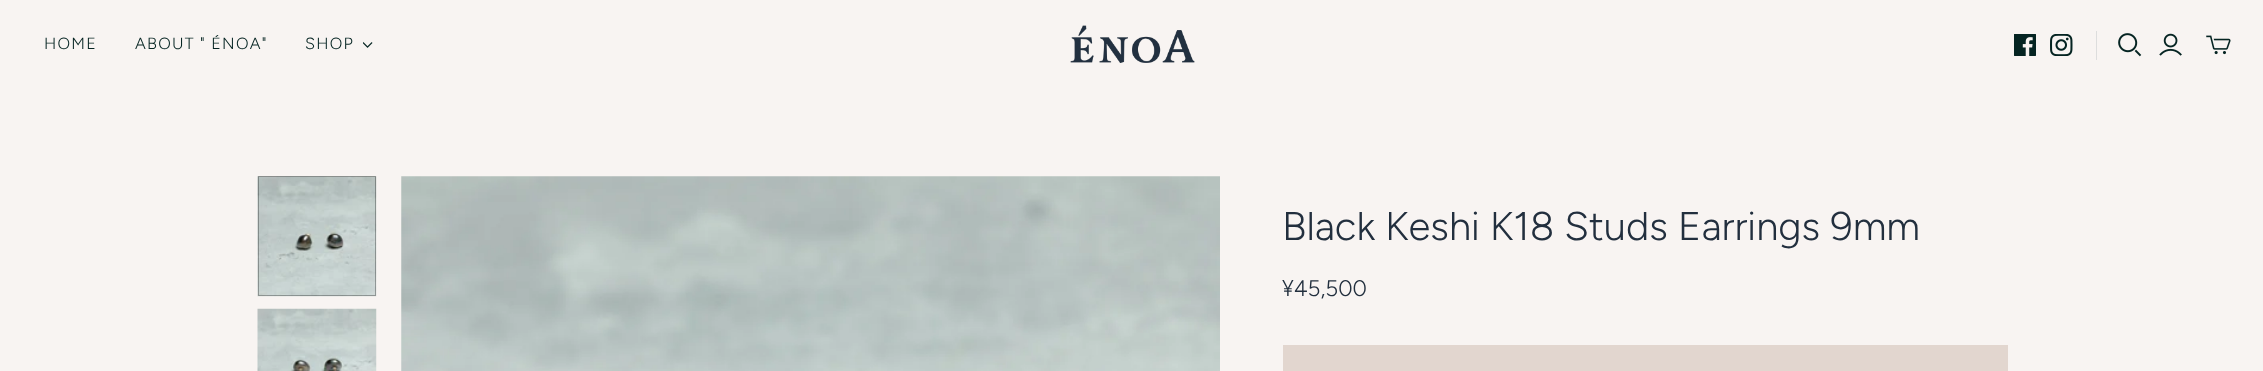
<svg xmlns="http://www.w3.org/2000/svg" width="2263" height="371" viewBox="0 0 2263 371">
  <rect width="100%" height="100%" fill="rgb(248,244,242)"/>
  <g font-family="Figtree" font-size="16.25" font-weight="300" letter-spacing="1.25" fill="rgb(5,36,34)">
    <text x="44" y="49">HOME</text>
    <text x="135" y="49">ABOUT " ÉNOA"</text>
    <text x="305" y="49">SHOP</text>
  </g>
  <image x="363" y="42" width="10" height="6" href="pic1.png"/>
  <image x="1070" y="25" width="125" height="38" href="pic2.png"/>
  <image x="2014" y="34" width="22" height="22" href="pic3.png"/>
  <image x="2050" y="34" width="23" height="22" href="pic4.png"/>
  <rect x="2096" y="31" width="1" height="29" fill="rgb(221,221,221)"/>
  <image x="2118" y="33" width="24" height="24" href="pic5.png"/>
  <image x="2159" y="33" width="23" height="23" href="pic6.png"/>
  <image x="2206" y="35" width="25" height="20" href="pic7.png"/>
  <image x="257" y="176" width="120" height="121" href="pic8.png"/>
  <rect x="258.5" y="176.5" width="117" height="119" fill="none" stroke="rgba(0,0,0,0.3)"/>
  <image x="257" y="308" width="120" height="63" href="pic9.png"/>
  <image x="401" y="176" width="819" height="195" href="pic10.png"/>
  <text x="1282" y="240" font-family="Figtree" font-size="40" font-weight="300" fill="rgb(34,47,62)">Black Keshi K18 Studs Earrings 9mm</text>
  <text x="1282" y="296" font-family="Figtree" font-size="22.5" font-weight="300" fill="rgb(34,47,62)">¥45,500</text>
  <rect x="1283" y="345" width="725" height="26" fill="rgb(226,214,207)"/>
</svg>
